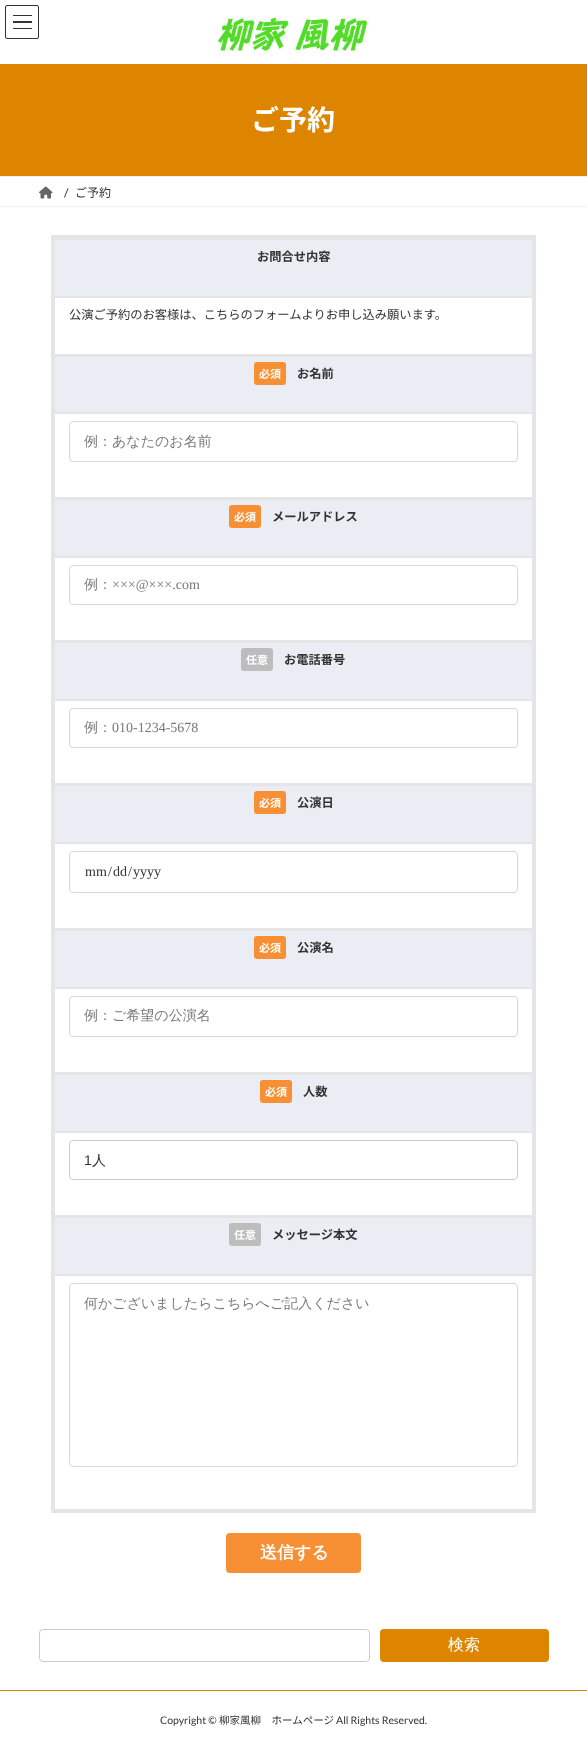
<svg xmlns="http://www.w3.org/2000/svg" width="587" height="1764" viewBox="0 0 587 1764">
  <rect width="100%" height="100%" fill="rgb(255,255,255)"/>
  <rect x="13" y="15" width="19" height="1" fill="rgb(51,51,51)"/>
  <rect x="13" y="21" width="19" height="2" fill="rgb(51,51,51)"/>
  <rect x="13" y="28" width="19" height="1" fill="rgb(51,51,51)"/>
  <rect x="5.5" y="5.5" width="33" height="33" rx="1.5" fill="none" stroke="rgb(51,51,51)"/>
  <image x="217" y="17" width="151" height="34" href="pic1.png"/>
  <rect x="0" y="64" width="587" height="112" fill="rgb(221,133,0)"/>
  <text x="251" y="130" font-family="Noto Sans JP" font-size="28" font-weight="bold" fill="rgb(255,255,255)">ご予約</text>
  <rect x="0" y="176" width="587" height="1" fill="rgb(240,240,240)"/>
  <rect x="0" y="206" width="587" height="1" fill="rgb(240,240,240)"/>
  <image x="39" y="186" width="14" height="13" href="pic2.png"/>
  <text x="64" y="197" font-family="Lato" font-size="12" fill="rgb(51,51,51)">/</text>
  <text x="75" y="197" font-family="Noto Sans JP" font-size="12" fill="rgb(51,51,51)">ご予約</text>
  <rect x="51" y="235" width="485" height="3" fill="rgb(229,229,229)"/>
  <rect x="533" y="235" width="3" height="1278" fill="rgb(229,229,229)"/>
  <rect x="51" y="1510" width="485" height="3" fill="rgb(229,229,229)"/>
  <rect x="51" y="235" width="3" height="1278" fill="rgb(229,229,229)"/>
  <rect x="54" y="238" width="479" height="1" fill="rgb(229,229,229)"/>
  <rect x="54.5" y="239.5" width="478" height="57" fill="rgb(235,237,245)" stroke="rgb(229,229,229)"/>
  <text x="257" y="261" font-family="Noto Sans JP" font-size="12.25" font-weight="bold" fill="rgb(51,51,51)">お問合せ内容</text>
  <rect x="54.5" y="297.5" width="478" height="57" fill="none" stroke="rgb(229,229,229)"/>
  <text x="69" y="319" font-family="Noto Sans JP" font-size="12.25" fill="rgb(51,51,51)">公演ご予約のお客様は、こちらのフォームよりお申し込み願います。</text>
  <rect x="54" y="355" width="479" height="1" fill="rgb(229,229,229)"/>
  <rect x="54.5" y="356.5" width="478" height="56" fill="rgb(235,237,245)" stroke="rgb(229,229,229)"/>
  <rect x="254" y="362" width="32" height="23" rx="3" fill="rgb(247,144,52)"/>
  <text x="259" y="378" font-family="Noto Sans JP" font-size="11" font-weight="bold" fill="rgb(255,255,255)">必須</text>
  <text x="297" y="378" font-family="Noto Sans JP" font-size="12.25" font-weight="bold" fill="rgb(51,51,51)">お名前</text>
  <rect x="54.5" y="413.5" width="478" height="84" fill="none" stroke="rgb(229,229,229)"/>
  <rect x="69.5" y="421.5" width="448" height="40" rx="3.5" fill="none" stroke="rgb(216,216,216)"/>
  <text x="84" y="446" font-family="WenQuanYi Zen Hei" font-size="14" font-weight="500" fill="rgb(121,121,121)">例：あなたのお名前</text>
  <rect x="54" y="498" width="479" height="1" fill="rgb(229,229,229)"/>
  <rect x="54.5" y="499.5" width="478" height="57" fill="rgb(235,237,245)" stroke="rgb(229,229,229)"/>
  <rect x="229" y="505" width="32" height="23" rx="3" fill="rgb(247,144,52)"/>
  <text x="234" y="521" font-family="Noto Sans JP" font-size="11" font-weight="bold" fill="rgb(255,255,255)">必須</text>
  <text x="272" y="521" font-family="Noto Sans JP" font-size="12.25" font-weight="bold" fill="rgb(51,51,51)">メールアドレス</text>
  <rect x="54.5" y="557.5" width="478" height="83" fill="none" stroke="rgb(229,229,229)"/>
  <rect x="69.5" y="565.5" width="448" height="39" rx="3.5" fill="none" stroke="rgb(216,216,216)"/>
  <text x="84" y="589" font-family="WenQuanYi Zen Hei" font-size="14" font-weight="500" fill="rgb(121,121,121)">例：</text>
  <text x="112" y="589" font-family="Liberation Serif" font-size="14" fill="rgb(121,121,121)">×××@×××.com</text>
  <rect x="54" y="641" width="479" height="1" fill="rgb(229,229,229)"/>
  <rect x="54.5" y="642.5" width="478" height="57" fill="rgb(235,237,245)" stroke="rgb(229,229,229)"/>
  <rect x="241" y="648" width="32" height="23" rx="3" fill="rgb(189,189,189)"/>
  <text x="246" y="664" font-family="Noto Sans JP" font-size="11" font-weight="bold" fill="rgb(255,255,255)">任意</text>
  <text x="284" y="664" font-family="Noto Sans JP" font-size="12.25" font-weight="bold" fill="rgb(51,51,51)">お電話番号</text>
  <rect x="54.5" y="700.5" width="478" height="83" fill="none" stroke="rgb(229,229,229)"/>
  <rect x="69.5" y="708.5" width="448" height="39" rx="3.5" fill="none" stroke="rgb(216,216,216)"/>
  <text x="84" y="732" font-family="WenQuanYi Zen Hei" font-size="14" font-weight="500" fill="rgb(121,121,121)">例：</text>
  <text x="112" y="732" font-family="Liberation Serif" font-size="14" fill="rgb(121,121,121)">010-1234-5678</text>
  <rect x="54" y="784" width="479" height="1" fill="rgb(229,229,229)"/>
  <rect x="54.5" y="785.5" width="478" height="57" fill="rgb(235,237,245)" stroke="rgb(229,229,229)"/>
  <rect x="254" y="791" width="32" height="23" rx="3" fill="rgb(247,144,52)"/>
  <text x="259" y="807" font-family="Noto Sans JP" font-size="11" font-weight="bold" fill="rgb(255,255,255)">必須</text>
  <text x="297" y="807" font-family="Noto Sans JP" font-size="12.25" font-weight="bold" fill="rgb(51,51,51)">公演日</text>
  <rect x="54.5" y="843.5" width="478" height="85" fill="none" stroke="rgb(229,229,229)"/>
  <rect x="69.5" y="851.5" width="448" height="41" rx="3.5" fill="none" stroke="rgb(216,216,216)"/>
  <g font-family="Liberation Serif" font-size="14" fill="rgb(51,51,51)">
    <text x="85" y="876">mm</text>
    <text x="108" y="876">/</text>
    <text x="113" y="876">dd</text>
    <text x="128" y="876">/</text>
    <text x="133" y="876">yyyy</text>
  </g>
  <rect x="54" y="929" width="479" height="1" fill="rgb(229,229,229)"/>
  <rect x="54.5" y="930.5" width="478" height="57" fill="rgb(235,237,245)" stroke="rgb(229,229,229)"/>
  <rect x="254" y="936" width="32" height="23" rx="3" fill="rgb(247,144,52)"/>
  <text x="259" y="952" font-family="Noto Sans JP" font-size="11" font-weight="bold" fill="rgb(255,255,255)">必須</text>
  <text x="297" y="952" font-family="Noto Sans JP" font-size="12.25" font-weight="bold" fill="rgb(51,51,51)">公演名</text>
  <rect x="54.5" y="988.5" width="478" height="84" fill="none" stroke="rgb(229,229,229)"/>
  <rect x="69.5" y="996.5" width="448" height="40" rx="3.5" fill="none" stroke="rgb(216,216,216)"/>
  <text x="84" y="1020" font-family="WenQuanYi Zen Hei" font-size="14" font-weight="500" fill="rgb(121,121,121)">例：ご希望の公演名</text>
  <rect x="54" y="1073" width="479" height="1" fill="rgb(229,229,229)"/>
  <rect x="54.5" y="1074.5" width="478" height="57" fill="rgb(235,237,245)" stroke="rgb(229,229,229)"/>
  <rect x="260" y="1080" width="32" height="23" rx="3" fill="rgb(247,144,52)"/>
  <text x="265" y="1096" font-family="Noto Sans JP" font-size="11" font-weight="bold" fill="rgb(255,255,255)">必須</text>
  <text x="303" y="1096" font-family="Noto Sans JP" font-size="12.25" font-weight="bold" fill="rgb(51,51,51)">人数</text>
  <rect x="54.5" y="1132.5" width="478" height="83" fill="none" stroke="rgb(229,229,229)"/>
  <rect x="69.5" y="1140.5" width="448" height="39" rx="3.5" fill="none" stroke="rgb(204,204,204)"/>
  <text x="84" y="1165" font-family="Liberation Sans" font-size="14" fill="rgb(51,51,51)">1</text>
  <text x="92" y="1165" font-family="WenQuanYi Zen Hei" font-size="14" font-weight="500" fill="rgb(51,51,51)">人</text>
  <rect x="54" y="1216" width="479" height="1" fill="rgb(229,229,229)"/>
  <rect x="54.5" y="1217.5" width="478" height="57" fill="rgb(235,237,245)" stroke="rgb(229,229,229)"/>
  <rect x="229" y="1223" width="32" height="23" rx="3" fill="rgb(189,189,189)"/>
  <text x="234" y="1239" font-family="Noto Sans JP" font-size="11" font-weight="bold" fill="rgb(255,255,255)">任意</text>
  <text x="272" y="1239" font-family="Noto Sans JP" font-size="12.25" font-weight="bold" fill="rgb(51,51,51)">メッセージ本文</text>
  <rect x="54.5" y="1275.5" width="478" height="234" fill="none" stroke="rgb(229,229,229)"/>
  <rect x="69.5" y="1283.5" width="448" height="183" rx="3.5" fill="none" stroke="rgb(216,216,216)"/>
  <text x="84" y="1308" font-family="WenQuanYi Zen Hei" font-size="14" font-weight="500" fill="rgb(121,121,121)">何かございましたらこちらへご記入ください</text>
  <rect x="226" y="1533" width="135" height="40" rx="4" fill="rgb(247,144,52)"/>
  <text x="260" y="1558" font-family="WenQuanYi Zen Hei" font-size="17" font-weight="bold" fill="rgb(255,255,255)">送信する</text>
  <rect x="39.5" y="1629.5" width="330" height="32" rx="3.5" fill="none" stroke="rgb(204,204,204)"/>
  <rect x="380" y="1629" width="169" height="33" rx="4" fill="rgb(221,133,0)"/>
  <text x="448" y="1650" font-family="WenQuanYi Zen Hei" font-size="16" font-weight="500" fill="rgb(255,255,255)">検索</text>
  <rect x="0" y="1690" width="587" height="1" fill="rgb(221,133,0)"/>
  <text x="160" y="1724" font-family="Lato" font-size="10.5" fill="rgb(51,51,51)">Copyright ©</text>
  <text x="219" y="1724" font-family="Noto Sans JP" font-size="10.5" fill="rgb(51,51,51)">柳家風柳　ホームページ</text>
  <text x="336" y="1724" font-family="Lato" font-size="10.5" fill="rgb(51,51,51)">All Rights Reserved.</text>
</svg>
